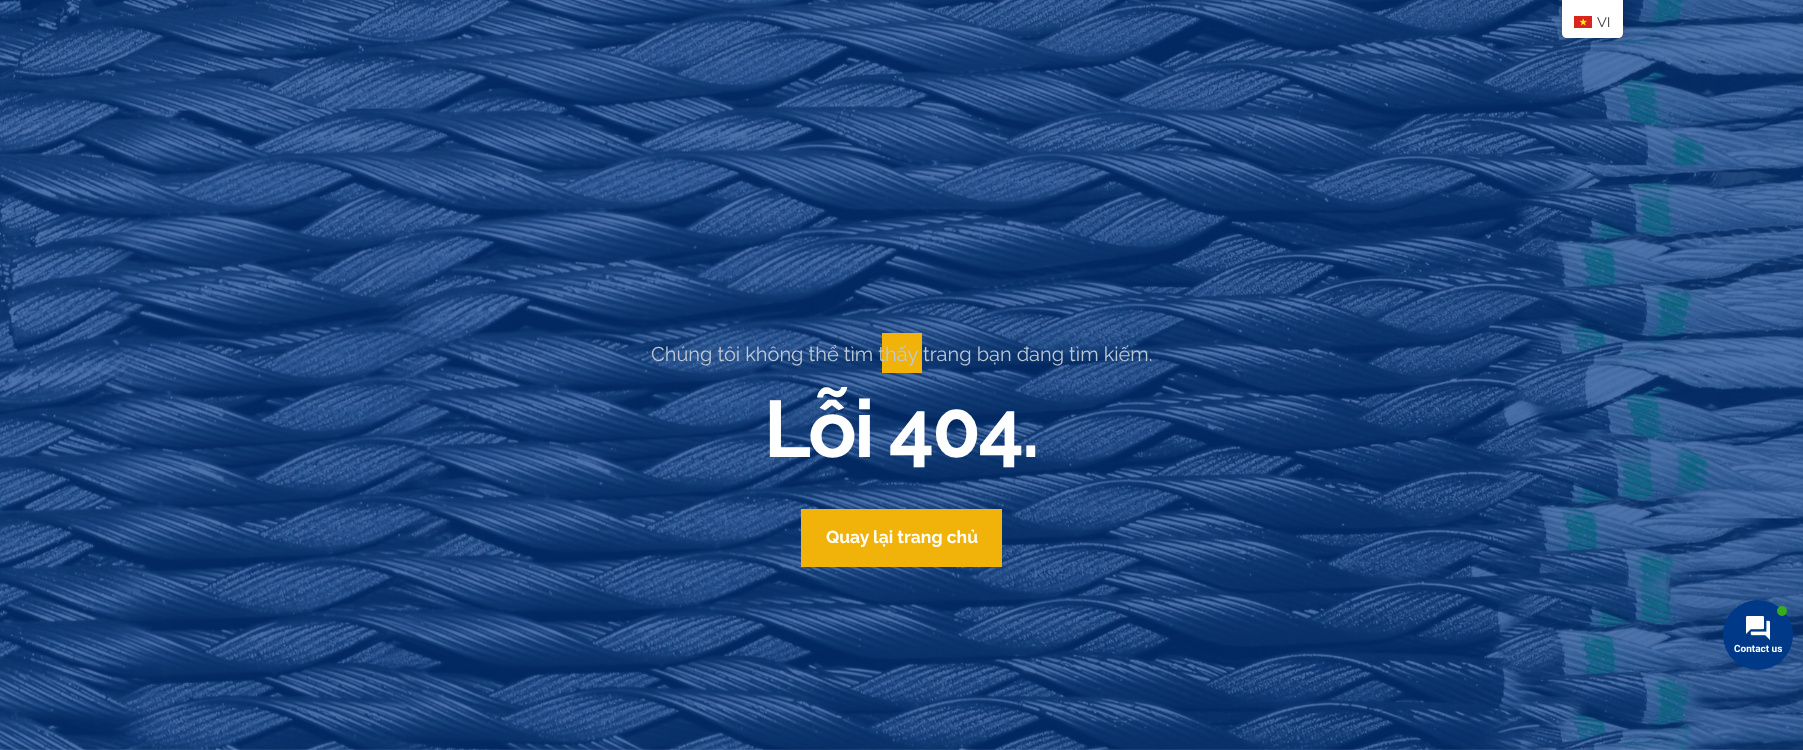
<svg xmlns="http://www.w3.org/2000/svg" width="1803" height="750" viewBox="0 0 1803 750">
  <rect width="100%" height="100%" fill="rgb(255,255,255)"/>
  <image x="0" y="0" width="1803" height="750" href="pic2.png"/>
  <rect x="1562" y="0" width="61" height="38" rx="5" fill="rgba(0,0,0,0.25)" filter="blur(4px)"/>
  <path d="M1562 0H1623V33C1623 36 1621 38 1618 38H1567C1564 38 1562 36 1562 33Z" fill="rgb(255,255,255)"/>
  <image x="1574" y="16" width="18" height="12" href="pic1.png"/>
  <text x="1597" y="27" font-family="Montserrat" font-size="14" fill="rgb(64,64,64)">VI</text>
  <rect x="882" y="333" width="40" height="40" fill="rgb(241,178,9)"/>
  <text x="651" y="361" font-family="Raleway" font-size="20" fill="rgb(191,201,213)">Chúng tôi không thể tìm thấy trang bạn đang tìm kiếm.</text>
  <text x="764" y="457" font-family="Raleway" font-size="80" font-weight="bold" letter-spacing="-2.5" fill="rgb(255,255,255)">Lỗi 404.</text>
  <rect x="801" y="509" width="201" height="58" fill="rgb(241,178,9)"/>
  <text x="826" y="543" font-family="Raleway" font-size="17.5" font-weight="bold" fill="rgb(255,255,255)">Quay lại trang chủ</text>
  <circle cx="1758" cy="635" r="35" fill="rgb(1,57,137)"/>
  <circle cx="1782" cy="611" r="5" fill="rgb(53,172,25)"/>
  <image x="1746" y="616" width="24" height="24" href="pic3.png"/>
  <text x="1734" y="652" font-family="Roboto" font-size="10" font-weight="bold" fill="rgb(255,255,255)">Contact us</text>
</svg>
